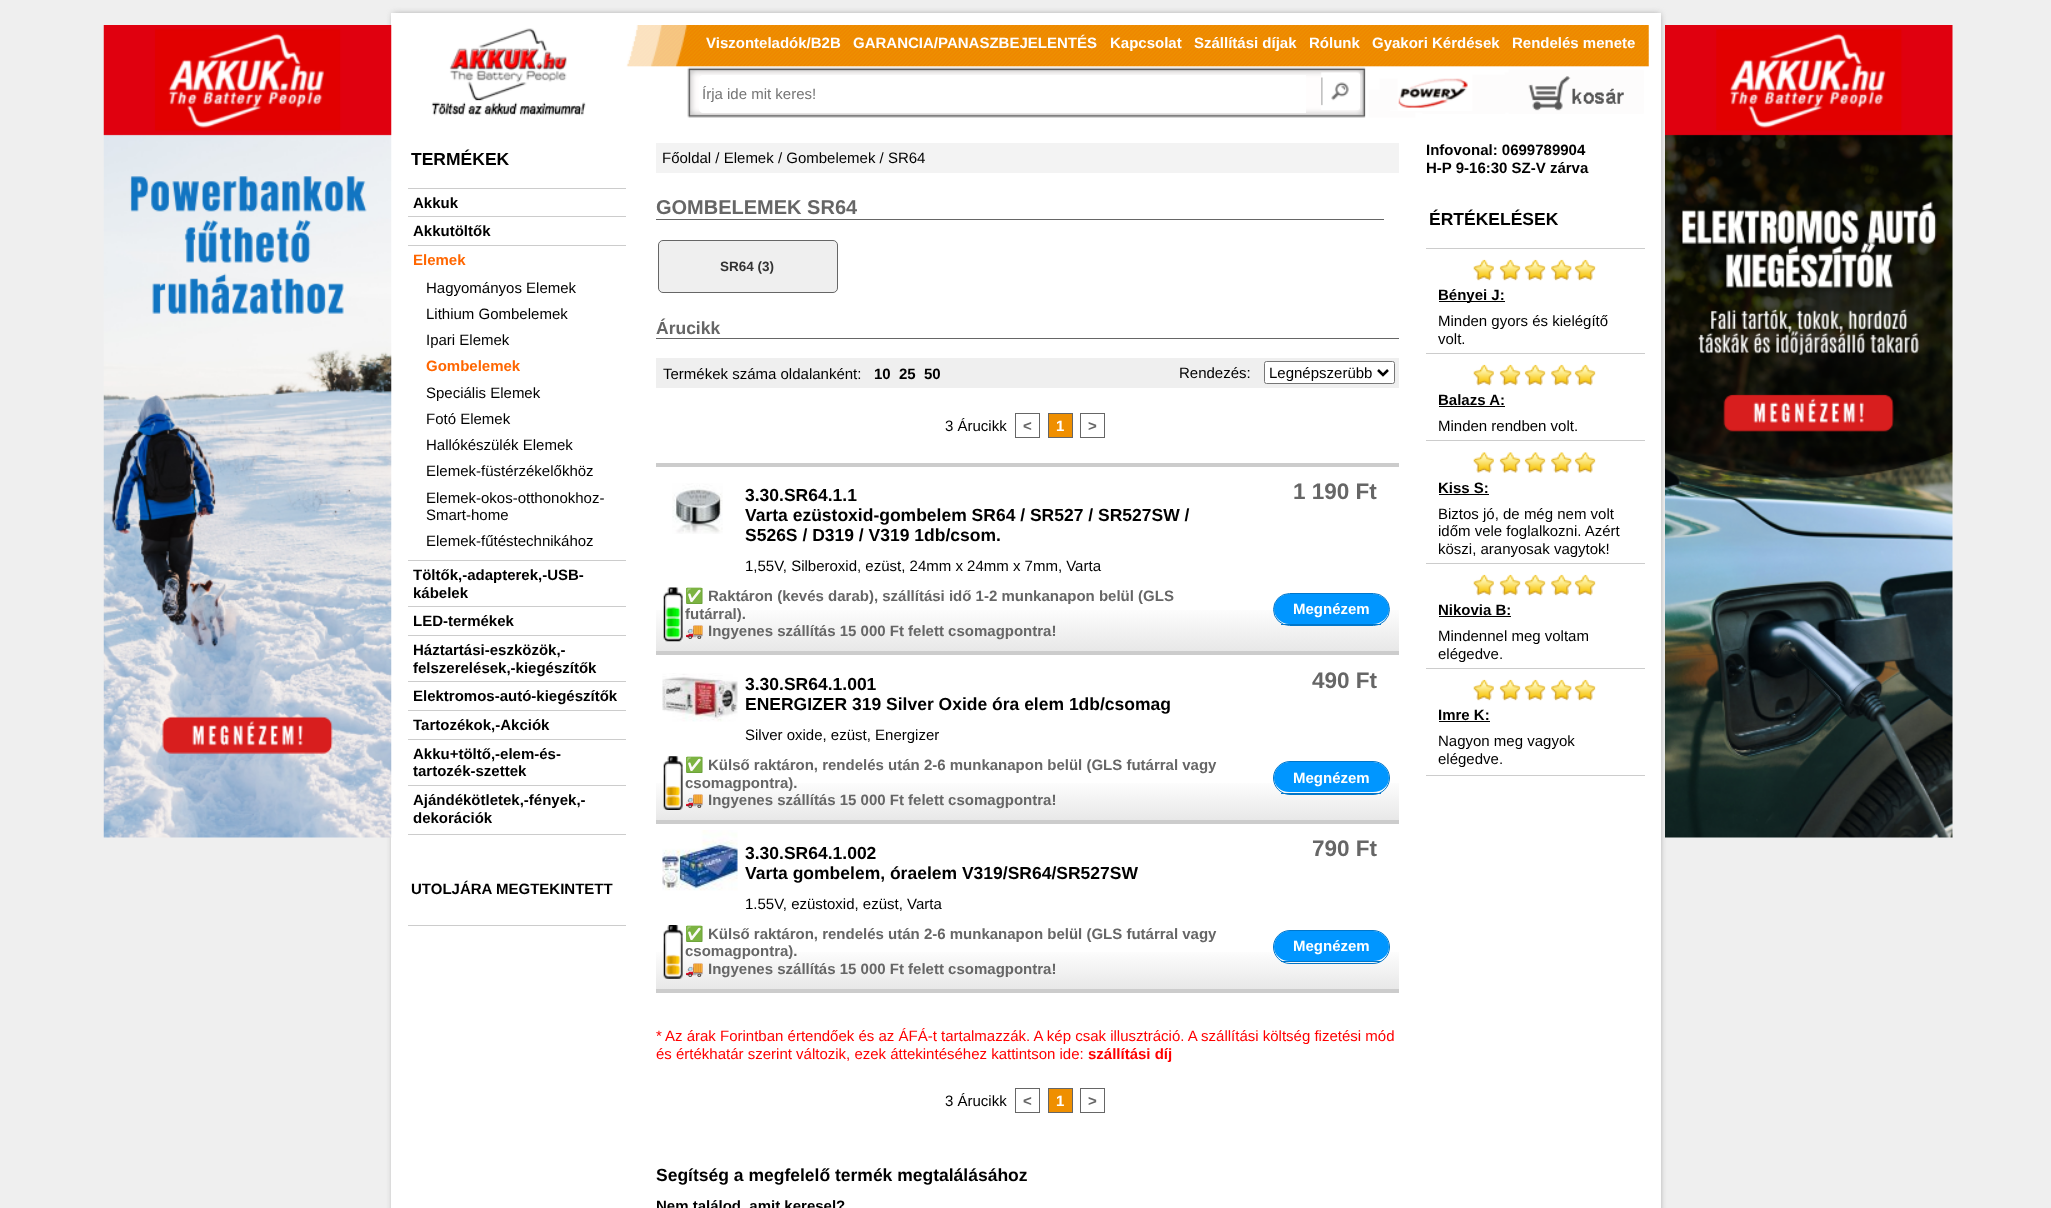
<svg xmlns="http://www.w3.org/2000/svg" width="2051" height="1208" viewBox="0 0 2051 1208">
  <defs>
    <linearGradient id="g1" gradientUnits="userSpaceOnUse" x1="1028" y1="466" x2="1028" y2="651"><stop offset="0.75" stop-color="rgb(219,219,219)" stop-opacity="0"/><stop offset="1" stop-color="rgb(219,219,219)" stop-opacity="0.65"/></linearGradient>
    <linearGradient id="g2" gradientUnits="userSpaceOnUse" x1="1028" y1="655" x2="1028" y2="820"><stop offset="0.75" stop-color="rgb(255,255,255)"/><stop offset="1" stop-color="rgb(232,232,232)"/></linearGradient>
    <linearGradient id="g3" gradientUnits="userSpaceOnUse" x1="1028" y1="824" x2="1028" y2="989"><stop offset="0.75" stop-color="rgb(255,255,255)"/><stop offset="1" stop-color="rgb(232,232,232)"/></linearGradient>
  </defs>
  <rect width="100%" height="100%" fill="rgb(239,239,239)"/>
  <rect x="393" y="14" width="1267" height="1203" fill="rgb(158,158,158)" filter="blur(3px)"/>
  <rect x="391" y="13" width="1270" height="1195" fill="rgb(255,255,255)"/>
  <image x="103" y="25" width="289" height="813" href="pic1.png"/>
  <image x="431" y="25" width="1218" height="93" href="pic2.png"/>
  <image x="1528" y="76" width="96" height="35" href="pic3.png"/>
  <rect x="408" y="834" width="218" height="1" fill="rgb(204,204,204)"/>
  <text x="411" y="165" font-family="Liberation Sans" font-size="17.5" font-weight="bold" fill="rgb(0,0,0)">TERMÉKEK</text>
  <rect x="408" y="188" width="218" height="1" fill="rgb(204,204,204)"/>
  <text x="413" y="208" font-family="Liberation Sans" font-size="15" font-weight="bold" fill="rgb(0,0,0)">Akkuk</text>
  <rect x="408" y="216" width="218" height="1" fill="rgb(204,204,204)"/>
  <text x="413" y="236" font-family="Liberation Sans" font-size="15" font-weight="bold" fill="rgb(0,0,0)">Akkutöltők</text>
  <rect x="408" y="245" width="218" height="1" fill="rgb(204,204,204)"/>
  <text x="413" y="265" font-family="Liberation Sans" font-size="15" font-weight="bold" fill="rgb(255,102,0)">Elemek</text>
  <g font-family="Liberation Sans" font-size="15" fill="rgb(0,0,0)">
    <text>
      <tspan x="426" y="293">Hagyományos Elemek</tspan>
      <tspan x="426" y="319">Lithium Gombelemek</tspan>
      <tspan x="426" y="345">Ipari Elemek</tspan>
    </text>
  </g>
  <text x="426" y="371" font-family="Liberation Sans" font-size="15" font-weight="bold" fill="rgb(255,102,0)">Gombelemek</text>
  <g font-family="Liberation Sans" font-size="15" fill="rgb(0,0,0)">
    <text>
      <tspan x="426" y="398">Speciális Elemek</tspan>
      <tspan x="426" y="424">Fotó Elemek</tspan>
      <tspan x="426" y="450">Hallókészülék Elemek</tspan>
      <tspan x="426" y="476">Elemek-füstérzékelőkhöz</tspan>
      <tspan x="426" y="503">Elemek-okos-otthonokhoz-</tspan>
      <tspan x="426" y="520">Smart-home</tspan>
      <tspan x="426" y="546">Elemek-fűtéstechnikához</tspan>
    </text>
  </g>
  <rect x="408" y="560" width="218" height="1" fill="rgb(204,204,204)"/>
  <g font-family="Liberation Sans" font-size="15" font-weight="bold" fill="rgb(0,0,0)">
    <text>
      <tspan x="413" y="580">Töltők,-adapterek,-USB-</tspan>
      <tspan x="413" y="598">kábelek</tspan>
    </text>
  </g>
  <rect x="408" y="606" width="218" height="1" fill="rgb(204,204,204)"/>
  <text x="413" y="626" font-family="Liberation Sans" font-size="15" font-weight="bold" fill="rgb(0,0,0)">LED-termékek</text>
  <rect x="408" y="635" width="218" height="1" fill="rgb(204,204,204)"/>
  <g font-family="Liberation Sans" font-size="15" font-weight="bold" fill="rgb(0,0,0)">
    <text>
      <tspan x="413" y="655">Háztartási-eszközök,-</tspan>
      <tspan x="413" y="673">felszerelések,-kiegészítők</tspan>
    </text>
  </g>
  <rect x="408" y="681" width="218" height="1" fill="rgb(204,204,204)"/>
  <text x="413" y="701" font-family="Liberation Sans" font-size="15" font-weight="bold" fill="rgb(0,0,0)">Elektromos-autó-kiegészítők</text>
  <rect x="408" y="710" width="218" height="1" fill="rgb(204,204,204)"/>
  <text x="413" y="730" font-family="Liberation Sans" font-size="15" font-weight="bold" fill="rgb(0,0,0)">Tartozékok,-Akciók</text>
  <rect x="408" y="739" width="218" height="1" fill="rgb(204,204,204)"/>
  <g font-family="Liberation Sans" font-size="15" font-weight="bold" fill="rgb(0,0,0)">
    <text>
      <tspan x="413" y="759">Akku+töltő,-elem-és-</tspan>
      <tspan x="413" y="776">tartozék-szettek</tspan>
    </text>
  </g>
  <rect x="408" y="785" width="218" height="1" fill="rgb(204,204,204)"/>
  <g font-family="Liberation Sans" font-size="15" font-weight="bold" fill="rgb(0,0,0)">
    <text>
      <tspan x="413" y="805">Ajándékötletek,-fények,-</tspan>
      <tspan x="413" y="823">dekorációk</tspan>
    </text>
  </g>
  <rect x="408" y="925" width="218" height="1" fill="rgb(204,204,204)"/>
  <text x="411" y="894" font-family="Liberation Sans" font-size="15" font-weight="bold" fill="rgb(0,0,0)">UTOLJÁRA MEGTEKINTETT</text>
  <g font-family="Liberation Sans" font-size="15" font-weight="bold" fill="rgb(255,255,255)">
    <text x="706" y="48">Viszonteladók/B2B</text>
    <text x="853" y="48">GARANCIA/PANASZBEJELENTÉS</text>
    <text x="1110" y="48">Kapcsolat</text>
    <text x="1194" y="48">Szállítási díjak</text>
    <text x="1309" y="48">Rólunk</text>
    <text x="1372" y="48">Gyakori Kérdések</text>
    <text x="1512" y="48">Rendelés menete</text>
  </g>
  <g font-family="Liberation Sans" font-size="15" font-weight="bold" fill="rgb(0,0,0)">
    <text>
      <tspan x="1426" y="155">Infovonal: 0699789904</tspan>
      <tspan x="1426" y="173">H-P 9-16:30 SZ-V zárva</tspan>
    </text>
  </g>
  <rect x="1426" y="775" width="219" height="1" fill="rgb(204,204,204)"/>
  <text x="1429" y="225" font-family="Liberation Sans" font-size="17.5" font-weight="bold" fill="rgb(0,0,0)">ÉRTÉKELÉSEK</text>
  <rect x="1426" y="248" width="219" height="1" fill="rgb(204,204,204)"/>
  <image x="1473" y="259" width="123" height="22" href="pic4.png"/>
  <rect x="1439" y="301" width="66" height="1" fill="rgb(0,0,0)"/>
  <text x="1438" y="300" font-family="Liberation Sans" font-size="15" font-weight="bold" fill="rgb(0,0,0)">Bényei J:</text>
  <g font-family="Liberation Sans" font-size="15" fill="rgb(0,0,0)">
    <text>
      <tspan x="1438" y="326">Minden gyors és kielégítő</tspan>
      <tspan x="1438" y="344">volt.</tspan>
    </text>
  </g>
  <rect x="1426" y="353" width="219" height="1" fill="rgb(204,204,204)"/>
  <image x="1473" y="364" width="123" height="22" href="pic4.png"/>
  <text x="1438" y="405" font-family="Liberation Sans" font-size="15" font-weight="bold" fill="rgb(0,0,0)">Balazs A:</text>
  <rect x="1439" y="406" width="66" height="1" fill="rgb(0,0,0)"/>
  <text x="1438" y="431" font-family="Liberation Sans" font-size="15" fill="rgb(0,0,0)">Minden rendben volt.</text>
  <rect x="1426" y="440" width="219" height="1" fill="rgb(204,204,204)"/>
  <image x="1473" y="452" width="123" height="21" href="pic5.png"/>
  <text x="1438" y="493" font-family="Liberation Sans" font-size="15" font-weight="bold" fill="rgb(0,0,0)">Kiss S:</text>
  <rect x="1439" y="494" width="50" height="1" fill="rgb(0,0,0)"/>
  <g font-family="Liberation Sans" font-size="15" fill="rgb(0,0,0)">
    <text>
      <tspan x="1438" y="519">Biztos jó, de még nem volt</tspan>
      <tspan x="1438" y="536">időm vele foglalkozni. Azért</tspan>
      <tspan x="1438" y="554">köszi, aranyosak vagytok!</tspan>
    </text>
  </g>
  <rect x="1426" y="563" width="219" height="1" fill="rgb(204,204,204)"/>
  <image x="1473" y="574" width="123" height="22" href="pic6.png"/>
  <text x="1438" y="615" font-family="Liberation Sans" font-size="15" font-weight="bold" fill="rgb(0,0,0)">Nikovia B:</text>
  <rect x="1439" y="616" width="72" height="1" fill="rgb(0,0,0)"/>
  <g font-family="Liberation Sans" font-size="15" fill="rgb(0,0,0)">
    <text>
      <tspan x="1438" y="641">Mindennel meg voltam</tspan>
      <tspan x="1438" y="659">elégedve.</tspan>
    </text>
  </g>
  <rect x="1426" y="668" width="219" height="1" fill="rgb(204,204,204)"/>
  <image x="1473" y="679" width="123" height="22" href="pic4.png"/>
  <text x="1438" y="720" font-family="Liberation Sans" font-size="15" font-weight="bold" fill="rgb(0,0,0)">Imre K:</text>
  <rect x="1439" y="721" width="51" height="1" fill="rgb(0,0,0)"/>
  <g font-family="Liberation Sans" font-size="15" fill="rgb(0,0,0)">
    <text>
      <tspan x="1438" y="746">Nagyon meg vagyok</tspan>
      <tspan x="1438" y="764">elégedve.</tspan>
    </text>
  </g>
  <rect x="656" y="143" width="743" height="30" fill="rgb(243,243,243)"/>
  <text x="662" y="163" font-family="Liberation Sans" font-size="15" fill="rgb(0,0,0)">Főoldal / Elemek / Gombelemek / SR64</text>
  <rect x="656" y="219" width="728" height="1" fill="rgb(102,102,102)"/>
  <text x="656" y="214" font-family="Liberation Sans" font-size="20" font-weight="bold" fill="rgb(102,102,102)">GOMBELEMEK SR64</text>
  <rect x="658.5" y="240.5" width="179" height="52" rx="4.5" fill="rgb(239,239,239)" stroke="rgb(102,102,102)"/>
  <text x="720" y="271" font-family="Liberation Sans" font-size="13.5" font-weight="bold" fill="rgb(51,51,51)">SR64 (3)</text>
  <rect x="656" y="338" width="743" height="1" fill="rgb(102,102,102)"/>
  <text x="656" y="334" font-family="Liberation Sans" font-size="17.5" font-weight="bold" fill="rgb(102,102,102)">Árucikk</text>
  <rect x="656" y="358" width="743" height="30" fill="rgb(239,239,239)"/>
  <text x="663" y="379" font-family="Liberation Sans" font-size="15" fill="rgb(0,0,0)">Termékek száma oldalanként:</text>
  <g font-family="Liberation Sans" font-size="15" font-weight="bold" fill="rgb(0,0,0)">
    <text x="874" y="379">10</text>
    <text x="899" y="379">25</text>
    <text x="924" y="379">50</text>
  </g>
  <text x="1179" y="378" font-family="Liberation Sans" font-size="15" fill="rgb(0,0,0)">Rendezés:</text>
  <rect x="1264.5" y="361.5" width="130" height="22" rx="2" fill="rgb(255,255,255)" stroke="rgb(118,118,118)"/>
  <path d="M1378 370L1383 375L1388 370" fill="none" stroke="rgb(0,0,0)" stroke-width="2.5"/>
  <g font-family="Liberation Sans" font-size="15" fill="rgb(0,0,0)">
    <text x="1269" y="378">Legnépszerübb</text>
    <text x="945" y="431">3 Árucikk</text>
  </g>
  <rect x="1015.5" y="413.5" width="24" height="24" fill="none" stroke="rgb(102,102,102)"/>
  <text x="1023" y="431" font-family="Liberation Sans" font-size="15" font-weight="bold" fill="rgb(102,102,102)">&lt;</text>
  <rect x="1048.5" y="413.5" width="24" height="24" fill="rgb(239,143,0)" stroke="rgb(102,102,102)"/>
  <text x="1056" y="431" font-family="Liberation Sans" font-size="15" font-weight="bold" fill="rgb(255,255,255)">1</text>
  <rect x="1080.5" y="413.5" width="24" height="24" fill="none" stroke="rgb(102,102,102)"/>
  <text x="1088" y="431" font-family="Liberation Sans" font-size="15" font-weight="bold" fill="rgb(102,102,102)">&gt;</text>
  <rect x="656" y="463" width="743" height="4" fill="rgb(204,204,204)"/>
  <rect x="656" y="610" width="743" height="41" fill="url(#g1)"/>
  <rect x="656" y="651" width="743" height="4" fill="rgb(204,204,204)"/>
  <image x="672" y="483" width="51" height="51" href="pic7.png"/>
  <g font-family="Liberation Sans" font-size="17.5" font-weight="bold" fill="rgb(0,0,0)">
    <text>
      <tspan x="745" y="501">3.30.SR64.1.1</tspan>
      <tspan x="745" y="521">Varta ezüstoxid-gombelem SR64 / SR527 / SR527SW /</tspan>
      <tspan x="745" y="541">S526S / D319 / V319 1db/csom.</tspan>
    </text>
  </g>
  <text x="745" y="571" font-family="Liberation Sans" font-size="15" fill="rgb(0,0,0)">1,55V, Silberoxid, ezüst, 24mm x 24mm x 7mm, Varta</text>
  <text x="1293" y="499" font-family="Liberation Sans" font-size="22.5" font-weight="bold" fill="rgb(102,102,102)">1 190 Ft</text>
  <image x="663" y="587" width="20" height="55" href="pic8.png"/>
  <text x="685" y="601" font-family="Noto Color Emoji" font-size="15" fill="rgb(102,102,102)">✅</text>
  <g font-family="Liberation Sans" font-size="15" font-weight="bold" fill="rgb(102,102,102)">
    <text x="708" y="601">Raktáron (kevés darab), szállítási idő 1-2 munkanapon belül (GLS</text>
    <text x="685" y="619">futárral).</text>
  </g>
  <text x="685" y="636" font-family="Noto Color Emoji" font-size="15" fill="rgb(102,102,102)">🚚</text>
  <text x="708" y="636" font-family="Liberation Sans" font-size="15" font-weight="bold" fill="rgb(102,102,102)">Ingyenes szállítás 15 000 Ft felett csomagpontra!</text>
  <path d="M1289 594H1373C1382 594 1389 601 1389 609C1389 617 1382 624 1373 624H1289C1281 624 1274 617 1274 609C1274 601 1281 594 1289 594Z" fill="rgb(0,150,255)"/>
  <rect x="1273.5" y="593.5" width="116" height="32" rx="16" fill="none" stroke="rgb(0,118,202)"/>
  <text x="1293" y="614" font-family="Liberation Sans" font-size="15" font-weight="bold" fill="rgb(255,255,255)">Megnézem</text>
  <rect x="1281" y="624" width="100" height="1" fill="rgb(0,118,202)"/>
  <rect x="656" y="783" width="743" height="37" fill="url(#g2)"/>
  <rect x="656" y="820" width="743" height="4" fill="rgb(204,204,204)"/>
  <image x="662" y="673" width="76" height="49" href="pic9.png"/>
  <g font-family="Liberation Sans" font-size="17.5" font-weight="bold" fill="rgb(0,0,0)">
    <text>
      <tspan x="745" y="690">3.30.SR64.1.001</tspan>
      <tspan x="745" y="710">ENERGIZER 319 Silver Oxide óra elem 1db/csomag</tspan>
    </text>
  </g>
  <text x="745" y="740" font-family="Liberation Sans" font-size="15" fill="rgb(0,0,0)">Silver oxide, ezüst, Energizer</text>
  <text x="1312" y="688" font-family="Liberation Sans" font-size="22.5" font-weight="bold" fill="rgb(102,102,102)">490 Ft</text>
  <image x="663" y="756" width="20" height="54" href="pic10.png"/>
  <text x="685" y="770" font-family="Noto Color Emoji" font-size="15" fill="rgb(102,102,102)">✅</text>
  <g font-family="Liberation Sans" font-size="15" font-weight="bold" fill="rgb(102,102,102)">
    <text x="708" y="770">Külső raktáron, rendelés után 2-6 munkanapon belül (GLS futárral vagy</text>
    <text x="685" y="788">csomagpontra).</text>
  </g>
  <text x="685" y="805" font-family="Noto Color Emoji" font-size="15" fill="rgb(102,102,102)">🚚</text>
  <text x="708" y="805" font-family="Liberation Sans" font-size="15" font-weight="bold" fill="rgb(102,102,102)">Ingyenes szállítás 15 000 Ft felett csomagpontra!</text>
  <path d="M1289 762H1373C1382 762 1389 769 1389 778C1389 786 1382 792 1373 792H1289C1281 792 1274 786 1274 778C1274 769 1281 762 1289 762Z" fill="rgb(0,150,255)"/>
  <rect x="1273.5" y="761.5" width="116" height="33" rx="16.5" fill="none" stroke="rgb(0,118,202)"/>
  <text x="1293" y="783" font-family="Liberation Sans" font-size="15" font-weight="bold" fill="rgb(255,255,255)">Megnézem</text>
  <rect x="1281" y="793" width="100" height="1" fill="rgb(0,118,202)"/>
  <rect x="656" y="952" width="743" height="37" fill="url(#g3)"/>
  <rect x="656" y="989" width="743" height="4" fill="rgb(204,204,204)"/>
  <image x="662" y="830" width="76" height="61" href="pic11.png"/>
  <g font-family="Liberation Sans" font-size="17.5" font-weight="bold" fill="rgb(0,0,0)">
    <text>
      <tspan x="745" y="859">3.30.SR64.1.002</tspan>
      <tspan x="745" y="879">Varta gombelem, óraelem V319/SR64/SR527SW</tspan>
    </text>
  </g>
  <text x="745" y="909" font-family="Liberation Sans" font-size="15" fill="rgb(0,0,0)">1.55V, ezüstoxid, ezüst, Varta</text>
  <text x="1312" y="856" font-family="Liberation Sans" font-size="22.5" font-weight="bold" fill="rgb(102,102,102)">790 Ft</text>
  <image x="663" y="925" width="20" height="54" href="pic12.png"/>
  <text x="685" y="939" font-family="Noto Color Emoji" font-size="15" fill="rgb(102,102,102)">✅</text>
  <g font-family="Liberation Sans" font-size="15" font-weight="bold" fill="rgb(102,102,102)">
    <text x="708" y="939">Külső raktáron, rendelés után 2-6 munkanapon belül (GLS futárral vagy</text>
    <text x="685" y="956">csomagpontra).</text>
  </g>
  <text x="685" y="974" font-family="Noto Color Emoji" font-size="15" fill="rgb(102,102,102)">🚚</text>
  <text x="708" y="974" font-family="Liberation Sans" font-size="15" font-weight="bold" fill="rgb(102,102,102)">Ingyenes szállítás 15 000 Ft felett csomagpontra!</text>
  <path d="M1289 931H1373C1382 931 1389 938 1389 947C1389 955 1382 961 1373 961H1289C1281 961 1274 955 1274 947C1274 938 1281 931 1289 931Z" fill="rgb(0,150,255)"/>
  <rect x="1273.5" y="930.5" width="116" height="33" rx="16.5" fill="none" stroke="rgb(0,118,202)"/>
  <text x="1293" y="951" font-family="Liberation Sans" font-size="15" font-weight="bold" fill="rgb(255,255,255)">Megnézem</text>
  <rect x="1281" y="961" width="100" height="1" fill="rgb(0,118,202)"/>
  <g font-family="Liberation Sans" font-size="15" fill="rgb(255,0,0)">
    <text x="656" y="1041">*</text>
    <text x="665" y="1041">Az árak Forintban értendőek és az ÁFÁ-t tartalmazzák. A kép csak illusztráció. A szállítási költség fizetési mód</text>
    <text x="656" y="1059">és értékhatár szerint változik, ezek áttekintéséhez kattintson ide:</text>
  </g>
  <text x="1088" y="1059" font-family="Liberation Sans" font-size="15" font-weight="bold" fill="rgb(255,0,0)">szállítási díj</text>
  <text x="945" y="1106" font-family="Liberation Sans" font-size="15" fill="rgb(0,0,0)">3 Árucikk</text>
  <rect x="1015.5" y="1088.5" width="24" height="24" fill="none" stroke="rgb(102,102,102)"/>
  <text x="1023" y="1106" font-family="Liberation Sans" font-size="15" font-weight="bold" fill="rgb(102,102,102)">&lt;</text>
  <rect x="1048.5" y="1088.5" width="24" height="24" fill="rgb(239,143,0)" stroke="rgb(102,102,102)"/>
  <text x="1056" y="1106" font-family="Liberation Sans" font-size="15" font-weight="bold" fill="rgb(255,255,255)">1</text>
  <rect x="1080.5" y="1088.5" width="24" height="24" fill="none" stroke="rgb(102,102,102)"/>
  <text x="1088" y="1106" font-family="Liberation Sans" font-size="15" font-weight="bold" fill="rgb(102,102,102)">&gt;</text>
  <text x="656" y="1181" font-family="Liberation Sans" font-size="17.5" font-weight="bold" fill="rgb(0,0,0)">Segítség a megfelelő termék megtalálásához</text>
  <text x="656" y="1211" font-family="Liberation Sans" font-size="15" font-weight="bold" fill="rgb(0,0,0)">Nem találod, amit keresel?</text>
  <image x="1665" y="25" width="288" height="813" href="pic13.png"/>
  <path d="M703 75H1306V113H703C701 113 699 111 699 109V79C699 77 701 75 703 75Z" fill="rgb(255,255,255)"/>
  <text x="702" y="99" font-family="Liberation Sans" font-size="15" fill="rgb(117,117,117)">Írja ide mit keres!</text>
  <image x="1321" y="72" width="39" height="38" href="pic14.png"/>
</svg>
